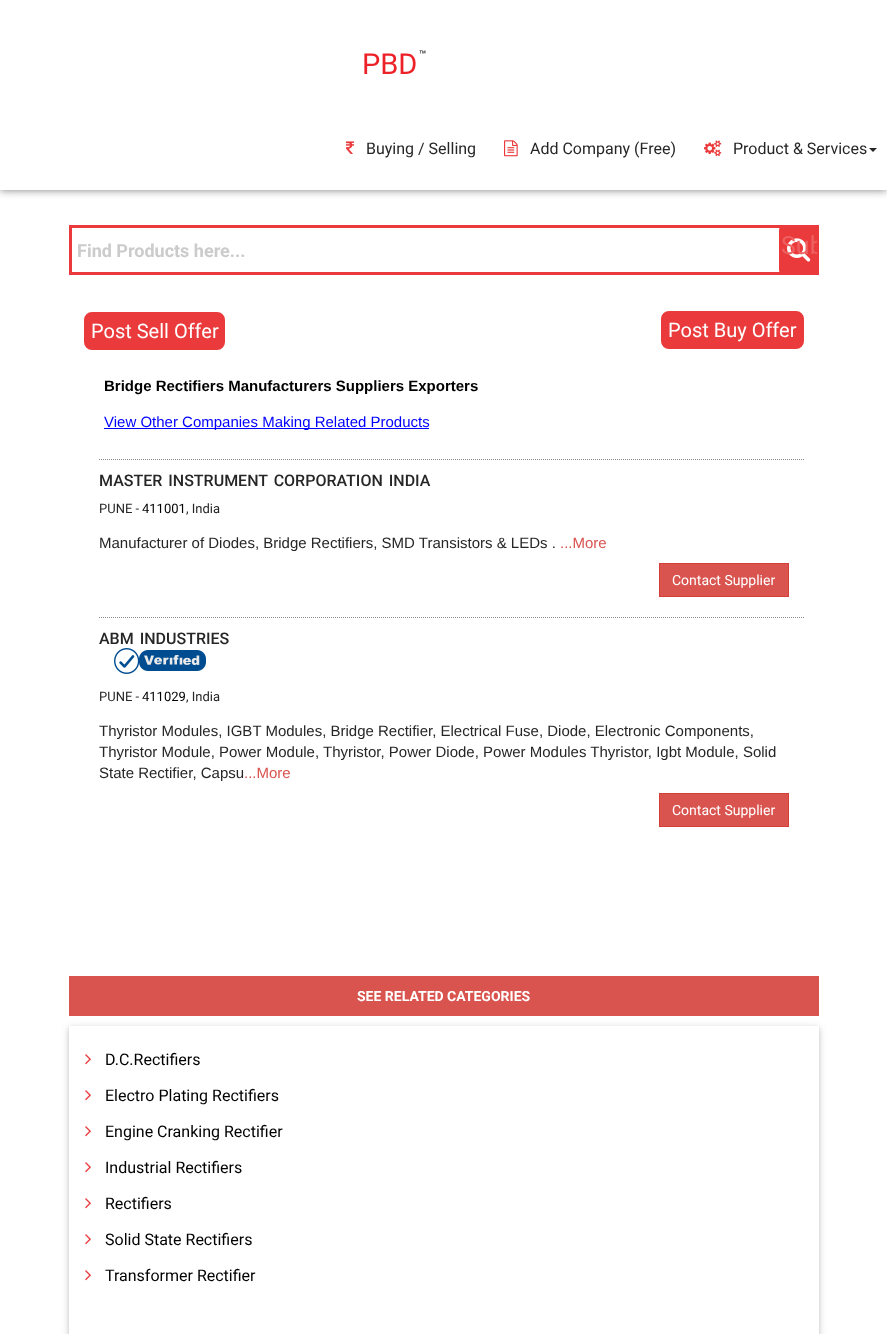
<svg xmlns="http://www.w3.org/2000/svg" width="887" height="1334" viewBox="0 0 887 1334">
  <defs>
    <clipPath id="clip1"><rect x="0" y="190" width="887" height="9"/></clipPath>
    <clipPath id="clip2"><rect x="781" y="227" width="36" height="36"/></clipPath>
    <clipPath id="clip3"><path d="M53 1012H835V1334H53ZM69 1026H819V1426H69Z" clip-rule="evenodd"/></clipPath>
    <clipPath id="clip4"><path d="M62 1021H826V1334H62ZM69 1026H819V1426H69Z" clip-rule="evenodd"/></clipPath>
  </defs>
  <rect width="100%" height="100%" fill="rgb(255,255,255)"/>
  <g clip-path="url(#clip1)">
    <rect x="0" y="0" width="887" height="190" fill="rgb(123,123,123)" filter="blur(4.5px)"/>
  </g>
  <text x="419" y="59" font-family="Roboto" font-size="12" fill="rgb(0,0,0)">™</text>
  <text x="362" y="74" font-family="Roboto" font-size="29" fill="rgb(237,34,40)">PBD</text>
  <image x="346" y="141" width="8" height="13" href="pic1.png"/>
  <text x="366" y="154" font-family="Roboto" font-size="16" fill="rgb(38,38,38)">Buying / Selling</text>
  <image x="504" y="140" width="14" height="17" href="pic2.png"/>
  <text x="530" y="154" font-family="Roboto" font-size="16" fill="rgb(38,38,38)">Add Company (Free)</text>
  <image x="704" y="140" width="18" height="17" href="pic3.png"/>
  <text x="733" y="154" font-family="Roboto" font-size="16" fill="rgb(38,38,38)">Product &amp; Services</text>
  <path d="M869 148H877L873 152Z" fill="rgb(38,38,38)"/>
  <rect x="70.5" y="226.5" width="747" height="47" fill="none" stroke="rgb(234,58,60)" stroke-width="3"/>
  <rect x="779" y="225" width="40" height="50" rx="5" fill="rgb(234,58,60)"/>
  <image x="787" y="238" width="24" height="24" href="pic4.png"/>
  <text x="77" y="257" font-family="Roboto" font-size="18" font-weight="bold" fill="rgb(203,203,203)">Find Products here...</text>
  <g clip-path="url(#clip2)">
    <text x="781" y="254" font-family="Roboto" font-size="25" fill="rgb(238,97,98)">Sub</text>
  </g>
  <rect x="85" y="313" width="139" height="36" rx="7" fill="rgb(234,58,60)" stroke="rgb(234,58,60)" stroke-width="2"/>
  <text x="91" y="338" font-family="Roboto" font-size="20" fill="rgb(255,255,255)">Post Sell Offer</text>
  <rect x="662" y="312" width="141" height="36" rx="7" fill="rgb(234,58,60)" stroke="rgb(234,58,60)" stroke-width="2"/>
  <text x="668" y="337" font-family="Roboto" font-size="20" fill="rgb(255,255,255)">Post Buy Offer</text>
  <text x="104" y="391" font-family="Liberation Sans" font-size="15" font-weight="bold" fill="rgb(0,0,0)">Bridge Rectifiers Manufacturers Suppliers Exporters</text>
  <rect x="104" y="428" width="325" height="1" fill="rgb(0,0,255)"/>
  <text x="104" y="427" font-family="Liberation Sans" font-size="15" fill="rgb(0,0,255)">View Other Companies Making Related Products</text>
  <path d="M99 459.5H804" fill="none" stroke="rgb(140,139,139)" stroke-dasharray="1 1"/>
  <text x="99" y="486" word-spacing="2" font-family="Roboto" font-size="16" font-weight="500" fill="rgb(38,38,38)">MASTER INSTRUMENT CORPORATION INDIA</text>
  <text x="99" y="513" font-family="Roboto" font-size="13" fill="rgb(38,38,38)">PUNE -</text>
  <text x="142" y="513" font-family="Roboto" font-size="13" fill="rgb(0,0,0)">411001</text>
  <text x="186" y="513" font-family="Roboto" font-size="13" fill="rgb(38,38,38)">, India</text>
  <text x="99" y="548" font-family="Liberation Sans" font-size="15" fill="rgb(38,38,38)">Manufacturer of Diodes, Bridge Rectifiers, SMD Transistors &amp; LEDs .</text>
  <text x="560" y="548" font-family="Liberation Sans" font-size="15" fill="rgb(217,83,79)">...More</text>
  <rect x="659.5" y="563.5" width="129" height="33" fill="rgb(217,83,79)" stroke="rgb(212,63,58)"/>
  <text x="672" y="585" font-family="Roboto" font-size="14" fill="rgb(255,255,255)">Contact Supplier</text>
  <path d="M99 617.5H804" fill="none" stroke="rgb(140,139,139)" stroke-dasharray="1 1"/>
  <text x="99" y="644" word-spacing="2" font-family="Roboto" font-size="16" font-weight="500" fill="rgb(38,38,38)">ABM INDUSTRIES</text>
  <image x="114" y="648" width="92" height="26" href="pic5.png"/>
  <text x="99" y="701" font-family="Roboto" font-size="13" fill="rgb(38,38,38)">PUNE -</text>
  <text x="142" y="701" font-family="Roboto" font-size="13" fill="rgb(0,0,0)">411029</text>
  <text x="186" y="701" font-family="Roboto" font-size="13" fill="rgb(38,38,38)">, India</text>
  <g font-family="Liberation Sans" font-size="15" fill="rgb(38,38,38)">
    <text>
      <tspan x="99" y="736">Thyristor Modules, IGBT Modules, Bridge Rectifier, Electrical Fuse, Diode, Electronic Components,</tspan>
      <tspan x="99" y="757">Thyristor Module, Power Module, Thyristor, Power Diode, Power Modules Thyristor, Igbt Module, Solid</tspan>
      <tspan x="99" y="778">State Rectifier, Capsu</tspan>
    </text>
  </g>
  <text x="244" y="778" font-family="Liberation Sans" font-size="15" fill="rgb(217,83,79)">...More</text>
  <rect x="659.5" y="793.5" width="129" height="33" fill="rgb(217,83,79)" stroke="rgb(212,63,58)"/>
  <text x="672" y="815" font-family="Roboto" font-size="14" fill="rgb(255,255,255)">Contact Supplier</text>
  <g clip-path="url(#clip3)">
    <rect x="69" y="1028" width="750" height="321" fill="rgba(0,0,0,0.12)" filter="blur(5px)"/>
  </g>
  <rect x="69" y="976" width="750" height="40" fill="rgb(217,83,79)"/>
  <text x="357" y="1001" font-family="Roboto" font-size="14" font-weight="bold" fill="rgb(255,255,255)">SEE RELATED CATEGORIES</text>
  <g clip-path="url(#clip4)">
    <rect x="69" y="1028" width="750" height="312" fill="rgba(0,0,0,0.16)" filter="blur(2px)"/>
  </g>
  <image x="85" y="1054" width="6" height="11" href="pic6.png"/>
  <text x="105" y="1065" font-family="Roboto" font-size="16" fill="rgb(0,0,0)">D.C.Rectifiers</text>
  <image x="85" y="1090" width="6" height="11" href="pic6.png"/>
  <text x="105" y="1101" font-family="Roboto" font-size="16" fill="rgb(0,0,0)">Electro Plating Rectifiers</text>
  <image x="85" y="1126" width="6" height="11" href="pic6.png"/>
  <text x="105" y="1137" font-family="Roboto" font-size="16" fill="rgb(0,0,0)">Engine Cranking Rectifier</text>
  <image x="85" y="1162" width="6" height="11" href="pic6.png"/>
  <text x="105" y="1173" font-family="Roboto" font-size="16" fill="rgb(0,0,0)">Industrial Rectifiers</text>
  <image x="85" y="1198" width="6" height="11" href="pic6.png"/>
  <text x="105" y="1209" font-family="Roboto" font-size="16" fill="rgb(0,0,0)">Rectifiers</text>
  <image x="85" y="1234" width="6" height="11" href="pic6.png"/>
  <text x="105" y="1245" font-family="Roboto" font-size="16" fill="rgb(0,0,0)">Solid State Rectifiers</text>
  <image x="85" y="1270" width="6" height="11" href="pic6.png"/>
  <text x="105" y="1281" font-family="Roboto" font-size="16" fill="rgb(0,0,0)">Transformer Rectifier</text>
</svg>
